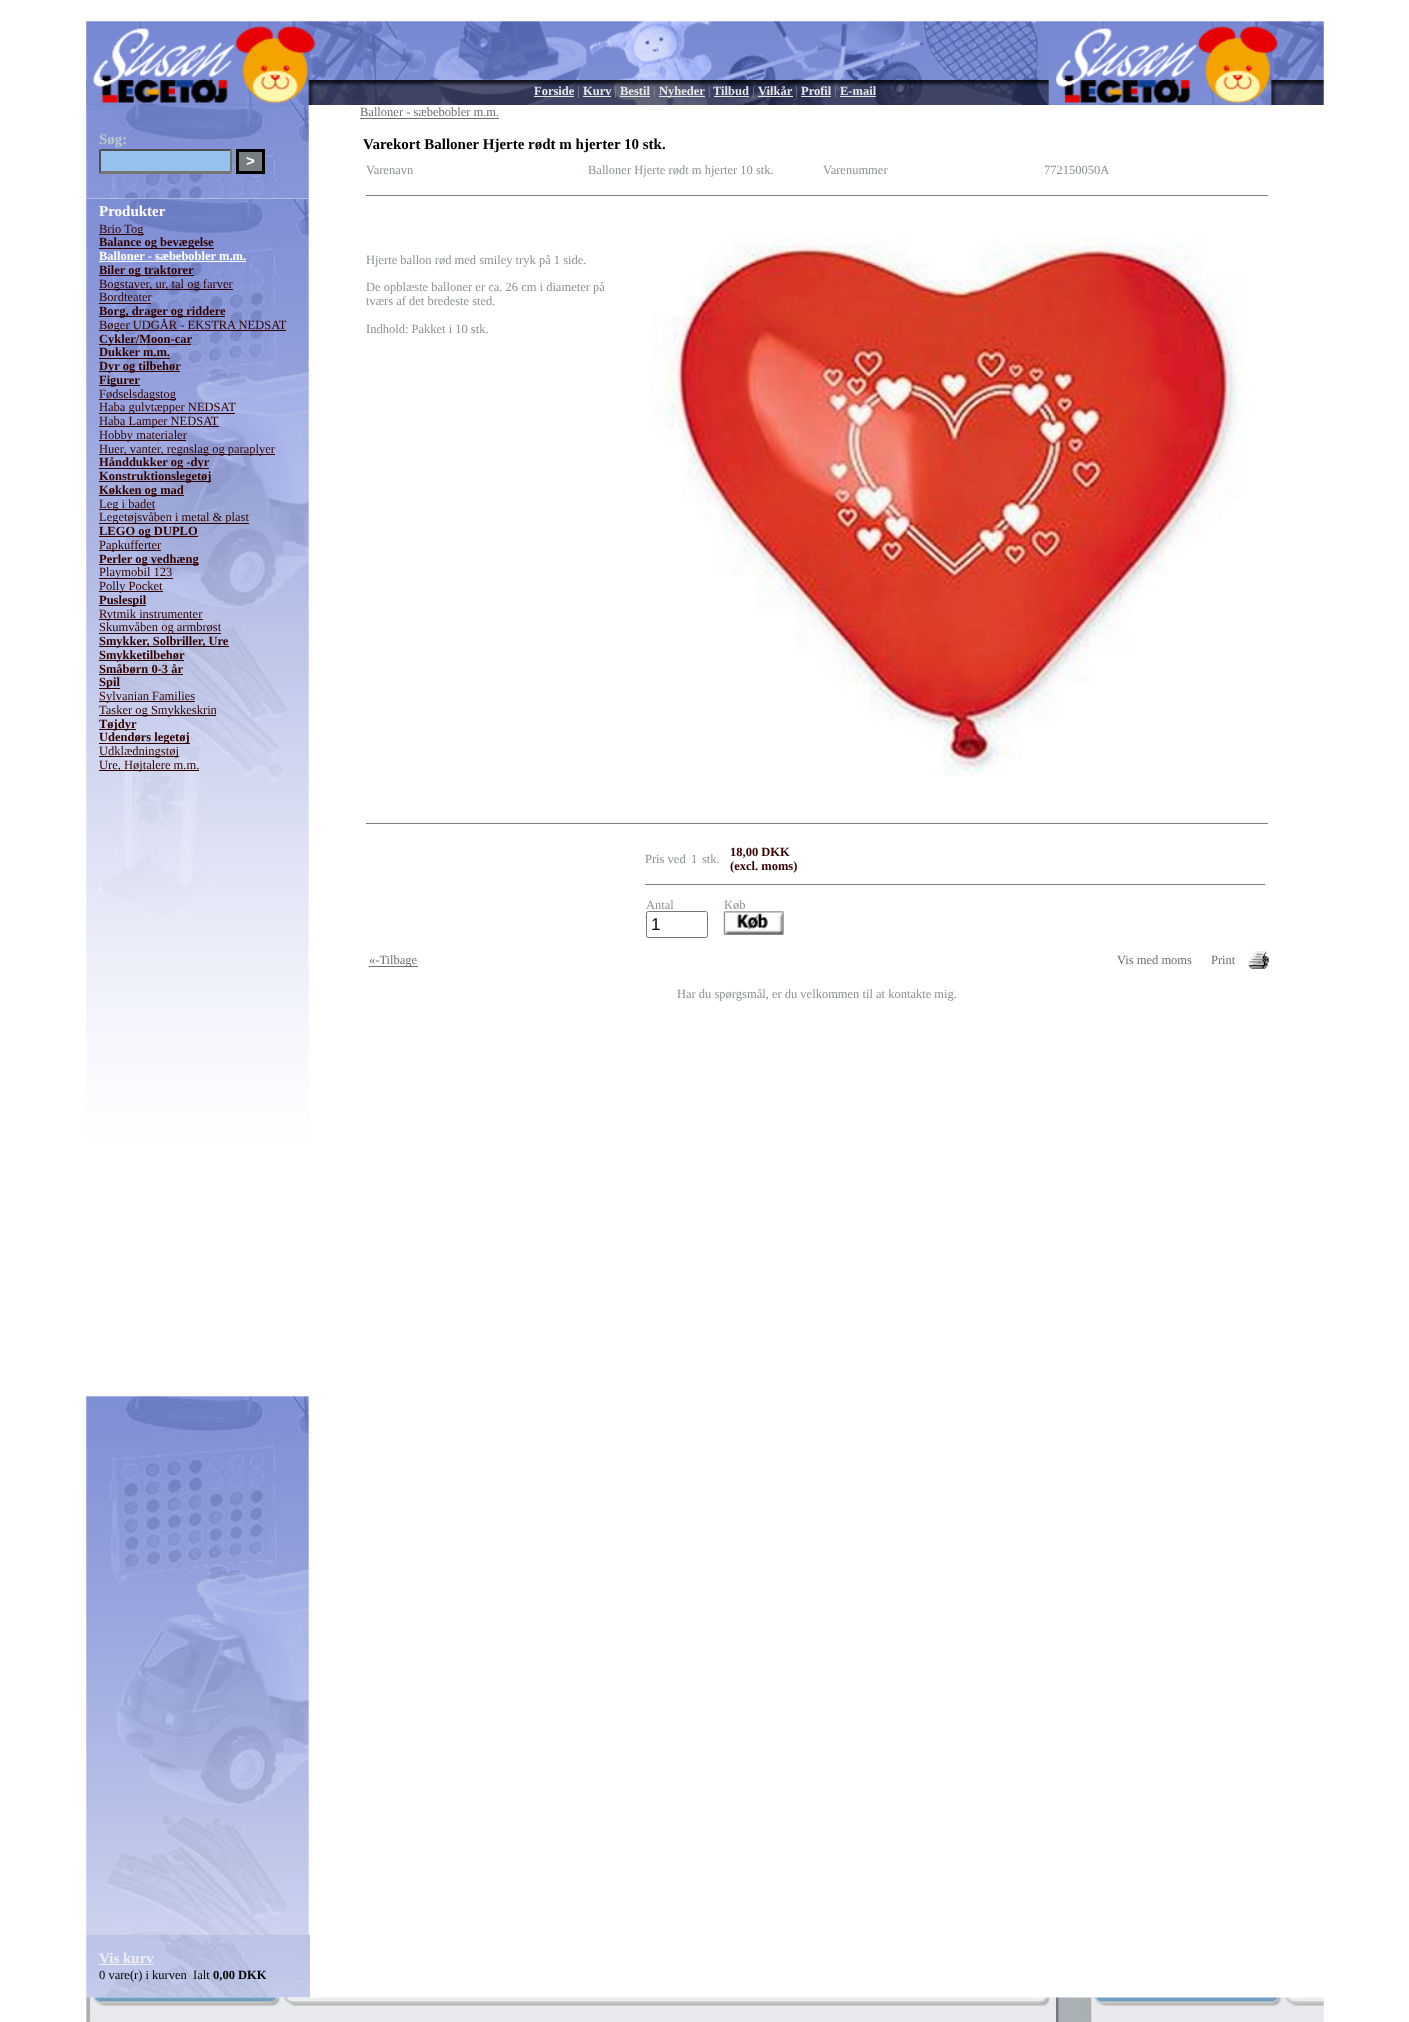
<svg xmlns="http://www.w3.org/2000/svg" width="1409" height="2022" viewBox="0 0 1409 2022">
  <rect width="100%" height="100%" fill="rgb(255,255,255)"/>
  <image x="86" y="20" width="1238" height="60" href="pic1.png"/>
  <image x="86" y="80" width="1238" height="25" href="pic2.png"/>
  <text x="534" y="95" font-family="Liberation Serif" font-size="12.5" font-weight="bold" fill="rgb(231,231,231)">Forside</text>
  <rect x="534" y="96" width="40" height="1" fill="rgb(231,231,231)"/>
  <text x="577" y="95" font-family="Liberation Serif" font-size="12.5" fill="rgb(137,145,146)">|</text>
  <text x="583" y="95" font-family="Liberation Serif" font-size="12.5" font-weight="bold" fill="rgb(231,231,231)">Kurv</text>
  <rect x="583" y="96" width="28" height="1" fill="rgb(231,231,231)"/>
  <text x="614" y="95" font-family="Liberation Serif" font-size="12.5" fill="rgb(137,145,146)">|</text>
  <text x="620" y="95" font-family="Liberation Serif" font-size="12.5" font-weight="bold" fill="rgb(231,231,231)">Bestil</text>
  <rect x="620" y="96" width="30" height="1" fill="rgb(231,231,231)"/>
  <text x="653" y="95" font-family="Liberation Serif" font-size="12.5" fill="rgb(137,145,146)">|</text>
  <rect x="659" y="96" width="46" height="1" fill="rgb(231,231,231)"/>
  <text x="659" y="95" font-family="Liberation Serif" font-size="12.5" font-weight="bold" fill="rgb(231,231,231)">Nyheder</text>
  <text x="708" y="95" font-family="Liberation Serif" font-size="12.5" fill="rgb(137,145,146)">|</text>
  <text x="713" y="95" font-family="Liberation Serif" font-size="12.5" font-weight="bold" fill="rgb(231,231,231)">Tilbud</text>
  <rect x="714" y="96" width="35" height="1" fill="rgb(231,231,231)"/>
  <text x="752" y="95" font-family="Liberation Serif" font-size="12.5" fill="rgb(137,145,146)">|</text>
  <text x="758" y="95" font-family="Liberation Serif" font-size="12.5" font-weight="bold" fill="rgb(231,231,231)">Vilkår</text>
  <rect x="758" y="96" width="35" height="1" fill="rgb(231,231,231)"/>
  <text x="795" y="95" font-family="Liberation Serif" font-size="12.5" fill="rgb(137,145,146)">|</text>
  <text x="801" y="95" font-family="Liberation Serif" font-size="12.5" font-weight="bold" fill="rgb(231,231,231)">Profil</text>
  <rect x="801" y="96" width="30" height="1" fill="rgb(231,231,231)"/>
  <text x="834" y="95" font-family="Liberation Serif" font-size="12.5" fill="rgb(137,145,146)">|</text>
  <text x="840" y="95" font-family="Liberation Serif" font-size="12.5" font-weight="bold" fill="rgb(231,231,231)">E-mail</text>
  <rect x="840" y="96" width="36" height="1" fill="rgb(231,231,231)"/>
  <image x="86" y="105" width="224" height="94" href="pic3.png"/>
  <text x="99" y="144" font-family="Liberation Serif" font-size="15" font-weight="bold" fill="rgb(188,200,202)">Søg:</text>
  <rect x="99" y="149" width="134" height="25" fill="rgb(150,193,238)"/>
  <path d="M99 149H232L230 151H101Z" fill="rgb(79,79,79)"/>
  <path d="M232.5 149V174L230 171V151Z" fill="rgb(118,118,118)"/>
  <path d="M232 174H99L101 171H230Z" fill="rgb(118,118,118)"/>
  <path d="M99 174V149L101 151V171Z" fill="rgb(79,79,79)"/>
  <rect x="237.5" y="150.5" width="26" height="22" fill="rgb(119,126,127)" stroke="rgb(0,0,0)" stroke-width="3"/>
  <text x="246" y="166" font-family="Liberation Sans" font-size="15" font-weight="bold" fill="rgb(255,255,255)">&gt;</text>
  <image x="86" y="198" width="224" height="1737" href="pic4.png"/>
  <text x="99" y="216" font-family="Liberation Serif" font-size="15" font-weight="bold" fill="rgb(255,255,255)">Produkter</text>
  <rect x="99" y="234" width="45" height="1" fill="rgb(51,0,0)"/>
  <text x="99" y="233" font-family="Liberation Serif" font-size="12.5" fill="rgb(51,0,0)">Brio Tog</text>
  <rect x="99" y="248" width="115" height="1" fill="rgb(51,0,0)"/>
  <text x="99" y="246" font-family="Liberation Serif" font-size="12.5" font-weight="bold" fill="rgb(51,0,0)">Balance og bevægelse</text>
  <text x="99" y="260" font-family="Liberation Serif" font-size="12.5" font-weight="bold" fill="rgb(255,255,255)">Balloner - sæbebobler m.m.</text>
  <rect x="99" y="261" width="147" height="1" fill="rgb(255,255,255)"/>
  <rect x="99" y="275" width="95" height="1" fill="rgb(51,0,0)"/>
  <text x="99" y="274" font-family="Liberation Serif" font-size="12.5" font-weight="bold" fill="rgb(51,0,0)">Biler og traktorer</text>
  <rect x="99" y="289" width="134" height="1" fill="rgb(51,0,0)"/>
  <g font-family="Liberation Serif" font-size="12.5" fill="rgb(51,0,0)">
    <text>
      <tspan x="99" y="288">Bogstaver, ur, tal og farver</tspan>
      <tspan x="99" y="301">Bordteater</tspan>
    </text>
  </g>
  <rect x="99" y="303" width="52" height="1" fill="rgb(51,0,0)"/>
  <rect x="99" y="316" width="126" height="1" fill="rgb(51,0,0)"/>
  <text x="99" y="315" font-family="Liberation Serif" font-size="12.5" font-weight="bold" fill="rgb(51,0,0)">Borg, drager og riddere</text>
  <rect x="99" y="330" width="187" height="1" fill="rgb(51,0,0)"/>
  <text x="99" y="329" font-family="Liberation Serif" font-size="12.5" fill="rgb(51,0,0)">Bøger UDGÅR - EKSTRA NEDSAT</text>
  <rect x="99" y="344" width="92" height="1" fill="rgb(51,0,0)"/>
  <g font-family="Liberation Serif" font-size="12.5" font-weight="bold" fill="rgb(51,0,0)">
    <text>
      <tspan x="99" y="343">Cykler/Moon-car</tspan>
      <tspan x="99" y="356">Dukker m.m.</tspan>
    </text>
  </g>
  <rect x="99" y="358" width="71" height="1" fill="rgb(51,0,0)"/>
  <rect x="99" y="371" width="81" height="1" fill="rgb(51,0,0)"/>
  <text x="99" y="370" font-family="Liberation Serif" font-size="12.5" font-weight="bold" fill="rgb(51,0,0)">Dyr og tilbehør</text>
  <rect x="99" y="385" width="41" height="1" fill="rgb(51,0,0)"/>
  <text x="99" y="384" font-family="Liberation Serif" font-size="12.5" font-weight="bold" fill="rgb(51,0,0)">Figurer</text>
  <rect x="99" y="399" width="77" height="1" fill="rgb(51,0,0)"/>
  <text x="99" y="398" font-family="Liberation Serif" font-size="12.5" fill="rgb(51,0,0)">Fødselsdagstog</text>
  <rect x="99" y="413" width="136" height="1" fill="rgb(51,0,0)"/>
  <text x="99" y="411" font-family="Liberation Serif" font-size="12.5" fill="rgb(51,0,0)">Haba gulvtæpper NEDSAT</text>
  <rect x="99" y="426" width="120" height="1" fill="rgb(51,0,0)"/>
  <text x="99" y="425" font-family="Liberation Serif" font-size="12.5" fill="rgb(51,0,0)">Haba Lamper NEDSAT</text>
  <rect x="99" y="440" width="87" height="1" fill="rgb(51,0,0)"/>
  <text x="99" y="439" font-family="Liberation Serif" font-size="12.5" fill="rgb(51,0,0)">Hobby materialer</text>
  <rect x="99" y="454" width="176" height="1" fill="rgb(51,0,0)"/>
  <text x="99" y="453" font-family="Liberation Serif" font-size="12.5" fill="rgb(51,0,0)">Huer, vanter, regnslag og paraplyer</text>
  <rect x="99" y="468" width="110" height="1" fill="rgb(51,0,0)"/>
  <text x="99" y="466" font-family="Liberation Serif" font-size="12.5" font-weight="bold" fill="rgb(51,0,0)">Hånddukker og -dyr</text>
  <rect x="99" y="481" width="112" height="1" fill="rgb(51,0,0)"/>
  <text x="99" y="480" font-family="Liberation Serif" font-size="12.5" font-weight="bold" fill="rgb(51,0,0)">Konstruktionslegetøj</text>
  <rect x="99" y="495" width="85" height="1" fill="rgb(51,0,0)"/>
  <text x="99" y="494" font-family="Liberation Serif" font-size="12.5" font-weight="bold" fill="rgb(51,0,0)">Køkken og mad</text>
  <rect x="99" y="509" width="56" height="1" fill="rgb(51,0,0)"/>
  <text x="99" y="508" font-family="Liberation Serif" font-size="12.5" fill="rgb(51,0,0)">Leg i badet</text>
  <rect x="99" y="523" width="150" height="1" fill="rgb(51,0,0)"/>
  <text x="99" y="521" font-family="Liberation Serif" font-size="12.5" fill="rgb(51,0,0)">Legetøjsvåben i metal &amp; plast</text>
  <rect x="99" y="536" width="99" height="1" fill="rgb(51,0,0)"/>
  <text x="99" y="535" font-family="Liberation Serif" font-size="12.5" font-weight="bold" fill="rgb(51,0,0)">LEGO og DUPLO</text>
  <rect x="99" y="550" width="62" height="1" fill="rgb(51,0,0)"/>
  <text x="99" y="549" font-family="Liberation Serif" font-size="12.5" fill="rgb(51,0,0)">Papkufferter</text>
  <rect x="99" y="564" width="100" height="1" fill="rgb(51,0,0)"/>
  <text x="99" y="563" font-family="Liberation Serif" font-size="12.5" font-weight="bold" fill="rgb(51,0,0)">Perler og vedhæng</text>
  <rect x="99" y="578" width="74" height="1" fill="rgb(51,0,0)"/>
  <text x="99" y="576" font-family="Liberation Serif" font-size="12.5" fill="rgb(51,0,0)">Playmobil 123</text>
  <rect x="99" y="591" width="64" height="1" fill="rgb(51,0,0)"/>
  <text x="99" y="590" font-family="Liberation Serif" font-size="12.5" fill="rgb(51,0,0)">Polly Pocket</text>
  <rect x="99" y="605" width="47" height="1" fill="rgb(51,0,0)"/>
  <text x="99" y="604" font-family="Liberation Serif" font-size="12.5" font-weight="bold" fill="rgb(51,0,0)">Puslespil</text>
  <rect x="99" y="619" width="104" height="1" fill="rgb(51,0,0)"/>
  <text x="99" y="618" font-family="Liberation Serif" font-size="12.5" fill="rgb(51,0,0)">Rytmik instrumenter</text>
  <rect x="99" y="633" width="122" height="1" fill="rgb(51,0,0)"/>
  <text x="99" y="631" font-family="Liberation Serif" font-size="12.5" fill="rgb(51,0,0)">Skumvåben og armbrøst</text>
  <rect x="99" y="646" width="130" height="1" fill="rgb(51,0,0)"/>
  <text x="99" y="645" font-family="Liberation Serif" font-size="12.5" font-weight="bold" fill="rgb(51,0,0)">Smykker, Solbriller, Ure</text>
  <rect x="99" y="660" width="85" height="1" fill="rgb(51,0,0)"/>
  <g font-family="Liberation Serif" font-size="12.5" font-weight="bold" fill="rgb(51,0,0)">
    <text>
      <tspan x="99" y="659">Smykketilbehør</tspan>
      <tspan x="99" y="673">Småbørn 0-3 år</tspan>
    </text>
  </g>
  <rect x="99" y="674" width="84" height="1" fill="rgb(51,0,0)"/>
  <rect x="99" y="688" width="21" height="1" fill="rgb(51,0,0)"/>
  <text x="99" y="686" font-family="Liberation Serif" font-size="12.5" font-weight="bold" fill="rgb(51,0,0)">Spil</text>
  <rect x="99" y="701" width="96" height="1" fill="rgb(51,0,0)"/>
  <text x="99" y="700" font-family="Liberation Serif" font-size="12.5" fill="rgb(51,0,0)">Sylvanian Families</text>
  <rect x="99" y="715" width="117" height="1" fill="rgb(51,0,0)"/>
  <text x="99" y="714" font-family="Liberation Serif" font-size="12.5" fill="rgb(51,0,0)">Tasker og Smykkeskrin</text>
  <rect x="99" y="729" width="37" height="1" fill="rgb(51,0,0)"/>
  <text x="99" y="728" font-family="Liberation Serif" font-size="12.5" font-weight="bold" fill="rgb(51,0,0)">Tøjdyr</text>
  <rect x="99" y="743" width="91" height="1" fill="rgb(51,0,0)"/>
  <text x="99" y="741" font-family="Liberation Serif" font-size="12.5" font-weight="bold" fill="rgb(51,0,0)">Udendørs legetøj</text>
  <rect x="99" y="756" width="80" height="1" fill="rgb(51,0,0)"/>
  <text x="99" y="755" font-family="Liberation Serif" font-size="12.5" fill="rgb(51,0,0)">Udklædningstøj</text>
  <rect x="99" y="770" width="100" height="1" fill="rgb(51,0,0)"/>
  <text x="99" y="769" font-family="Liberation Serif" font-size="12.5" fill="rgb(51,0,0)">Ure, Højtalere m.m.</text>
  <image x="86" y="1935" width="224" height="63" href="pic5.png"/>
  <text x="99" y="1963" font-family="Liberation Serif" font-size="15" font-weight="bold" fill="rgb(238,238,238)">Vis kurv</text>
  <rect x="99" y="1964" width="55" height="1" fill="rgb(238,238,238)"/>
  <g font-family="Liberation Serif" font-size="12.5" fill="rgb(0,0,0)">
    <text x="99" y="1979">0 vare(r) i kurven</text>
    <text x="193" y="1979">Ialt</text>
  </g>
  <text x="213" y="1979" font-family="Liberation Serif" font-size="12.5" font-weight="bold" fill="rgb(0,0,0)">0,00 DKK</text>
  <text x="360" y="116" font-family="Liberation Serif" font-size="12.5" fill="rgb(106,110,110)">Balloner - sæbebobler m.m.</text>
  <rect x="360" y="118" width="139" height="1" fill="rgb(106,110,110)"/>
  <text x="363" y="149" font-family="Liberation Serif" font-size="15" font-weight="bold" fill="rgb(0,0,0)">Varekort Balloner Hjerte rødt m hjerter 10 stk.</text>
  <g font-family="Liberation Serif" font-size="12.5" fill="rgb(137,145,146)">
    <text x="366" y="174">Varenavn</text>
    <text x="588" y="174">Balloner Hjerte rødt m hjerter 10 stk.</text>
    <text x="823" y="174">Varenummer</text>
    <text x="1044" y="174">772150050A</text>
  </g>
  <rect x="366" y="195" width="902" height="1" fill="rgb(128,128,128)"/>
  <g font-family="Liberation Serif" font-size="12.5" fill="rgb(137,145,146)">
    <text x="366" y="264">Hjerte ballon rød med smiley tryk på 1 side.</text>
    <text>
      <tspan x="366" y="291">De opblæste balloner er ca. 26 cm i diameter på</tspan>
      <tspan x="366" y="305">tværs af det bredeste sted.</tspan>
    </text>
    <text x="366" y="333">Indhold: Pakket i 10 stk.</text>
  </g>
  <image x="650" y="235" width="593" height="541" href="pic6.png"/>
  <rect x="366" y="823" width="902" height="1" fill="rgb(128,128,128)"/>
  <g font-family="Liberation Serif" font-size="12.5" fill="rgb(137,145,146)">
    <text x="645" y="863">Pris ved</text>
    <text x="691" y="863">1</text>
    <text x="702" y="863">stk.</text>
  </g>
  <g font-family="Liberation Serif" font-size="12.5" font-weight="bold" fill="rgb(51,0,0)">
    <text>
      <tspan x="730" y="856">18,00 DKK</tspan>
      <tspan x="730" y="870">(excl. moms)</tspan>
    </text>
  </g>
  <rect x="645" y="884" width="620" height="1" fill="rgb(128,128,128)"/>
  <text x="646" y="909" font-family="Liberation Serif" font-size="12.5" fill="rgb(137,145,146)">Antal</text>
  <rect x="646.5" y="911.5" width="61" height="26" rx="2" fill="none" stroke="rgb(118,118,118)"/>
  <text x="651" y="930" font-family="Liberation Sans" font-size="17" fill="rgb(0,0,0)">1</text>
  <text x="724" y="909" font-family="Liberation Serif" font-size="12.5" fill="rgb(137,145,146)">Køb</text>
  <image x="723" y="911" width="61" height="24" href="pic7.png"/>
  <rect x="369" y="966" width="49" height="1" fill="rgb(106,110,110)"/>
  <g font-family="Liberation Serif" font-size="12.5" fill="rgb(106,110,110)">
    <text x="369" y="964">«-Tilbage</text>
    <text x="1117" y="964">Vis med moms</text>
    <text x="1211" y="964">Print</text>
  </g>
  <image x="1248" y="951" width="21" height="18" href="pic8.png"/>
  <text x="677" y="998" font-family="Liberation Serif" font-size="12.5" fill="rgb(137,145,146)">Har du spørgsmål, er du velkommen til at kontakte mig.</text>
  <image x="86" y="1997" width="1238" height="25" href="pic9.png"/>
</svg>
